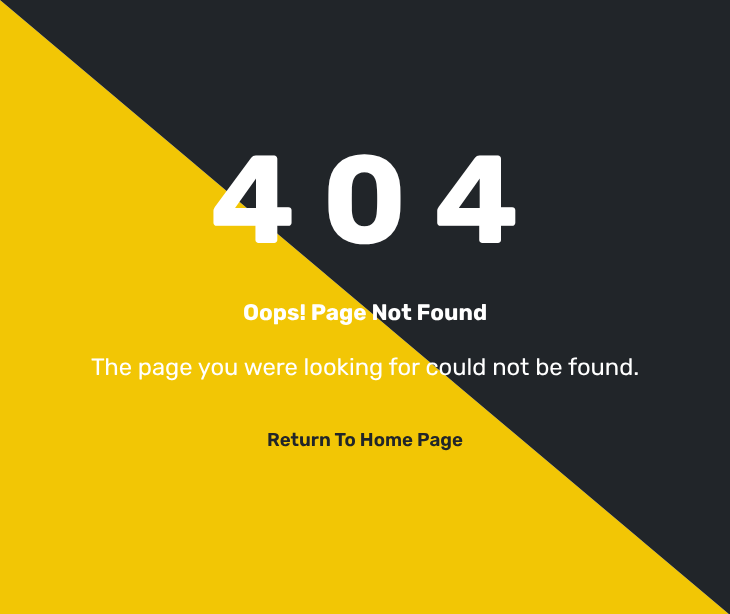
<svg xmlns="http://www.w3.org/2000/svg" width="730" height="614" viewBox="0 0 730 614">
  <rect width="100%" height="100%" fill="rgb(255,255,255)"/>
  <path d="M0 0L730 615H0Z" fill="rgb(242,198,5)"/>
  <path d="M0 0L730 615V0Z" fill="rgb(33,37,41)"/>
  <text x="210" y="243" font-family="Rubik" font-size="125" font-weight="bold" fill="rgb(255,255,255)">4 0 4</text>
  <text x="243" y="320" font-family="Rubik" font-size="22.5" font-weight="bold" fill="rgb(255,255,255)">Oops! Page Not Found</text>
  <text x="91" y="375" font-family="Rubik" font-size="23.75" fill="rgb(255,255,255)">The page you were looking for could not be found.</text>
  <text x="267" y="446" font-family="Rubik" font-size="18.75" font-weight="600" fill="rgb(33,37,41)">Return To Home Page</text>
</svg>
